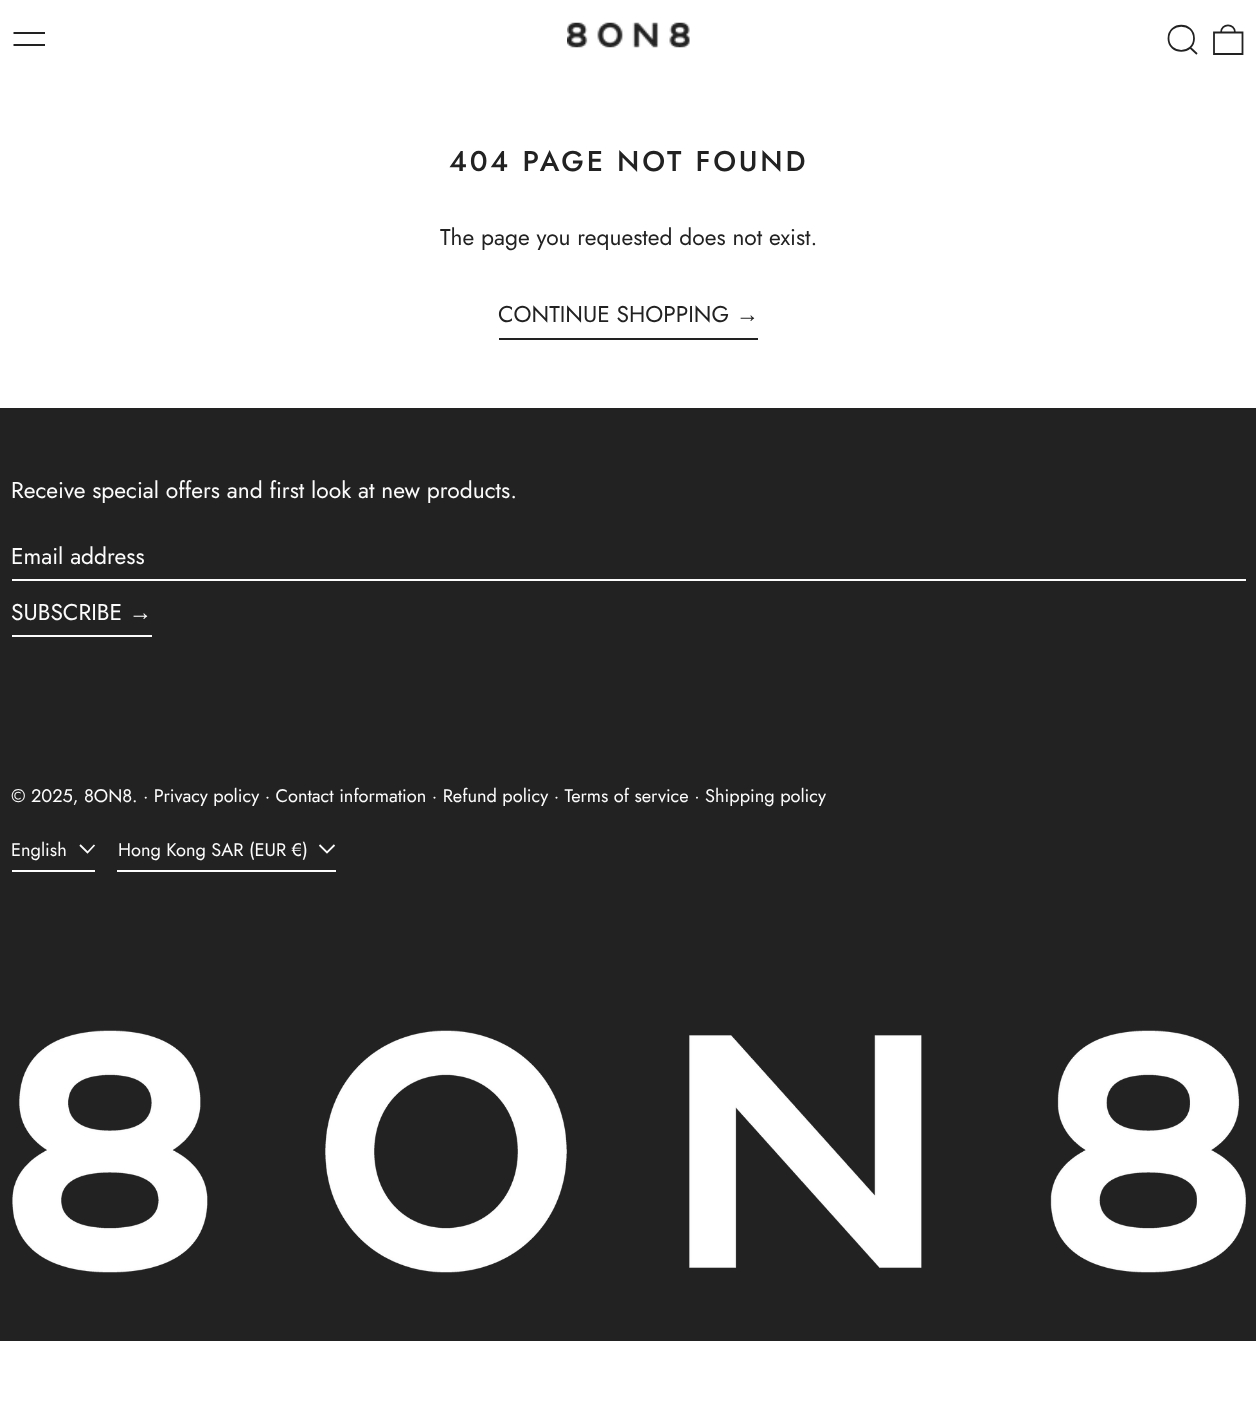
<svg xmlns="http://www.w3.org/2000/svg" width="1256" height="1410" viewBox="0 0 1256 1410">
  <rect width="100%" height="100%" fill="rgb(255,255,255)"/>
  <path d="M13.5 33H45M13.5 45H45" fill="none" stroke="rgb(34,34,34)" stroke-width="1.8"/>
  <image x="567" y="22" width="123" height="26" href="pic1.png"/>
  <path d="M1168.5 38.5C1168.5 55 1194 55 1194 38.5C1194 21.5 1168.5 21.5 1168.5 38.5ZM1190 47.5L1197 54" fill="none" stroke="rgb(34,34,34)" stroke-width="1.8"/>
  <path d="M1214 32.5H1242.5V54H1214ZM1235 32.5C1235 23 1221 23 1221 32.5" fill="none" stroke="rgb(34,34,34)" stroke-width="1.8"/>
  <text x="449" y="171" font-family="Jost" font-size="28.5" font-weight="500" letter-spacing="2.8" fill="rgb(34,34,34)">404 PAGE NOT FOUND</text>
  <text x="440" y="245" font-family="Jost" font-size="22.75" fill="rgb(34,34,34)">The page you requested does not exist.</text>
  <rect x="499" y="338" width="259" height="2" fill="rgb(34,34,34)"/>
  <text x="498" y="322" font-family="Jost" font-size="22.75" fill="rgb(34,34,34)">CONTINUE SHOPPING</text>
  <text x="736" y="322" font-family="Liberation Sans" font-size="22.75" fill="rgb(34,34,34)">→</text>
  <rect x="0" y="408" width="1256" height="933" fill="rgb(34,34,34)"/>
  <text x="11" y="498" font-family="Jost" font-size="22.75" fill="rgb(252,252,252)">Receive special offers and first look at new products.</text>
  <rect x="12" y="579" width="1234" height="2" fill="rgb(252,252,252)"/>
  <text x="11" y="564" font-family="Jost" font-size="22.75" fill="rgb(252,252,252)">Email address</text>
  <rect x="12" y="635" width="140" height="2" fill="rgb(252,252,252)"/>
  <text x="11" y="620" font-family="Jost" font-size="22.75" fill="rgb(252,252,252)">SUBSCRIBE</text>
  <text x="129" y="620" font-family="Liberation Sans" font-size="22.75" fill="rgb(252,252,252)">→</text>
  <g font-family="Jost" font-size="18.2" fill="rgb(252,252,252)">
    <text x="11" y="802">© 2025, 8ON8</text>
    <text x="132" y="802">. · Privacy policy · Contact information · Refund policy · Terms of service · Shipping policy</text>
  </g>
  <rect x="12" y="870" width="83" height="2" fill="rgb(252,252,252)"/>
  <text x="11" y="856" font-family="Jost" font-size="18.2" fill="rgb(252,252,252)">English</text>
  <path d="M80 845L87.5 852.5L94.5 845" fill="none" stroke="rgb(252,252,252)" stroke-width="1.8"/>
  <rect x="117" y="870" width="219" height="2" fill="rgb(252,252,252)"/>
  <text x="118" y="856" font-family="Jost" font-size="18.2" fill="rgb(252,252,252)">Hong Kong SAR (EUR €)</text>
  <path d="M319.5 845L327 852.5L334.5 845" fill="none" stroke="rgb(252,252,252)" stroke-width="1.8"/>
  <image x="12" y="1030" width="1234" height="243" href="pic2.png"/>
</svg>
